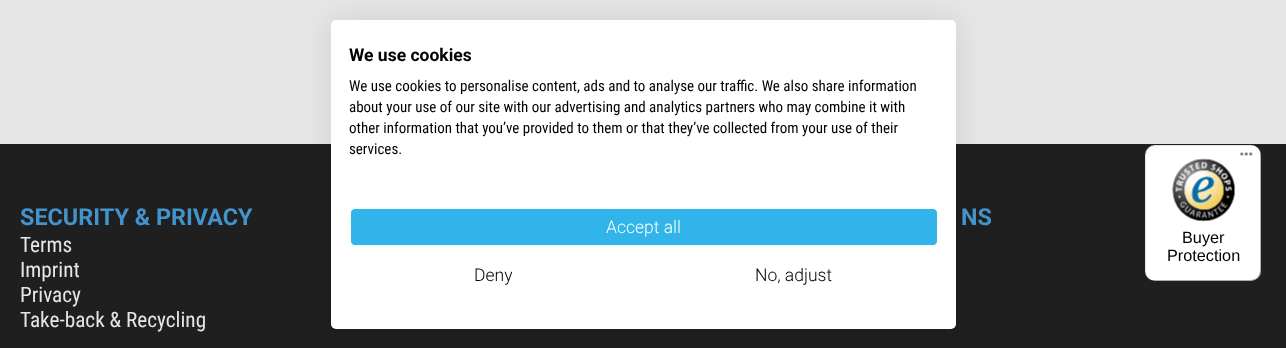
<svg xmlns="http://www.w3.org/2000/svg" width="1286" height="348" viewBox="0 0 1286 348">
  <rect width="100%" height="100%" fill="rgb(230,230,230)"/>
  <rect x="0" y="144" width="1286" height="204" fill="rgb(31,31,31)"/>
  <rect x="331" y="20" width="625" height="309" rx="5" fill="rgba(0,0,0,0.1)" filter="blur(15px)"/>
  <rect x="331" y="20" width="625" height="309" rx="5" fill="rgb(255,255,255)"/>
  <text x="349" y="61" font-family="Roboto" font-size="17.5" font-weight="bold" fill="rgb(0,0,0)">We use cookies</text>
  <g font-family="Roboto Condensed" font-size="15" fill="rgb(0,0,0)">
    <text>
      <tspan x="349" y="91">We use cookies to personalise content, ads and to analyse our traffic. We also share information</tspan>
      <tspan x="349" y="112">about your use of our site with our advertising and analytics partners who may combine it with</tspan>
      <tspan x="349" y="133">other information that you’ve provided to them or that they’ve collected from your use of their</tspan>
      <tspan x="349" y="154">services.</tspan>
    </text>
  </g>
  <rect x="350.5" y="208.5" width="587" height="37" rx="4.5" fill="rgb(49,180,233)" stroke="rgb(255,255,255)"/>
  <text x="606" y="233" font-family="Roboto" font-size="17.5" font-weight="300" fill="rgb(255,255,255)">Accept all</text>
  <g font-family="Roboto" font-size="17.5" font-weight="300" fill="rgb(0,0,0)">
    <text x="474" y="281">Deny</text>
    <text x="755" y="281">No, adjust</text>
  </g>
  <text x="20" y="225" font-family="Roboto" font-size="23.4" font-weight="bold" fill="rgb(67,148,203)">SECURITY &amp; PRIVACY</text>
  <g font-family="Roboto Condensed" font-size="21.25" fill="rgb(230,230,230)">
    <text>
      <tspan x="20" y="252">Terms</tspan>
      <tspan x="20" y="277">Imprint</tspan>
      <tspan x="20" y="302">Privacy</tspan>
      <tspan x="20" y="327">Take-back &amp; Recycling</tspan>
    </text>
  </g>
  <text x="961" y="225" font-family="Roboto" font-size="23.4" font-weight="bold" fill="rgb(67,148,203)">NS</text>
  <rect x="1145" y="145" width="116" height="136" rx="10" fill="rgb(255,255,255)"/>
  <path d="M1156 146H1252C1255 146 1257 147 1259 148C1257 146 1254 145 1251 145H1155C1149 145 1145 149 1145 155V271C1145 274 1146 277 1148 279C1147 277 1146 275 1146 272V156C1146 151 1151 146 1156 146Z" fill="rgba(0,0,0,0.1)"/>
  <path d="M1149 279C1150 280 1153 281 1155 281H1251C1257 281 1261 277 1261 271V155C1261 153 1260 150 1259 149C1260 150 1260 152 1260 154V270C1260 276 1256 280 1250 280H1154C1152 280 1150 280 1149 279Z" fill="rgba(0,0,0,0.2)"/>
  <path d="M1147 277C1149 280 1152 281 1155 281H1251C1257 281 1261 277 1261 271V155C1261 152 1260 149 1257 147C1259 149 1260 152 1260 154V270C1260 276 1256 280 1250 280H1154C1152 280 1149 279 1147 277Z" fill="rgba(50,50,50,0.2)"/>
  <image x="1240" y="152" width="13" height="4" href="pic1.png"/>
  <path d="M1251 281C1256.5 281 1261 276.5 1261 271C1261 276 1256 281 1251 281Z" fill="rgba(255,255,255,0.3)"/>
  <image x="1172" y="158" width="63" height="64" href="pic2.png"/>
  <g font-family="Liberation Sans" font-size="16.25" fill="rgb(0,0,0)">
    <text x="1182" y="243">Buyer</text>
    <text x="1167" y="261">Protection</text>
  </g>
</svg>
